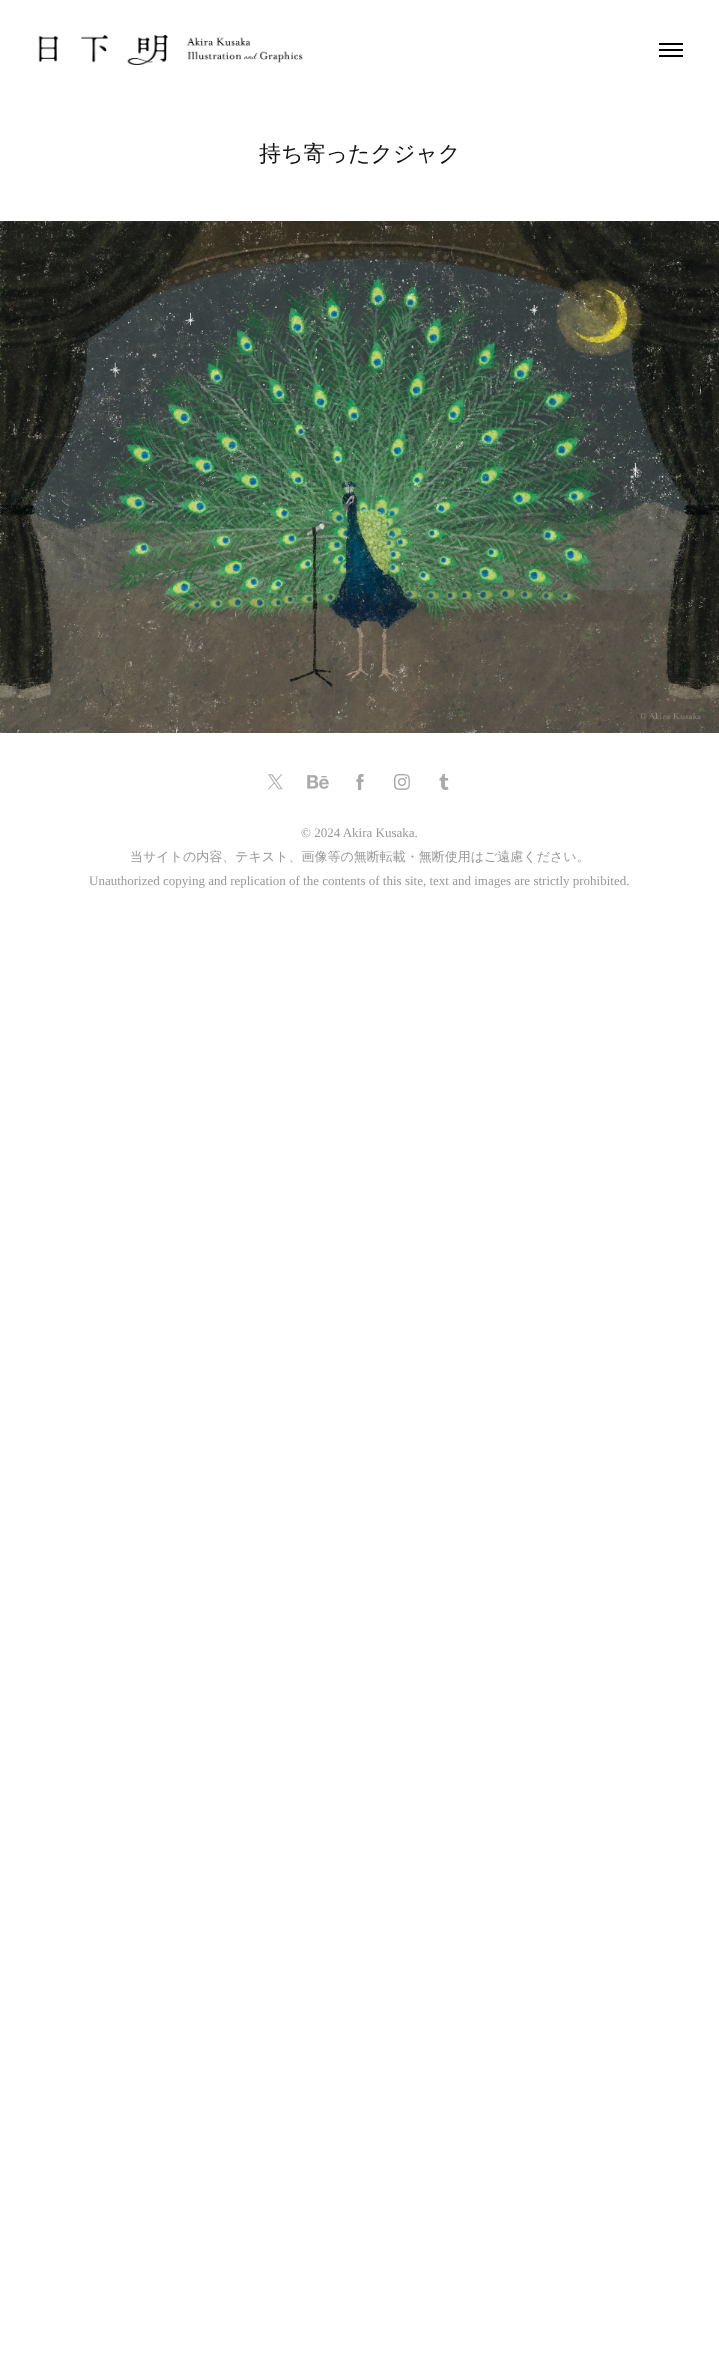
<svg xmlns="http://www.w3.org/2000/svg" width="719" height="2368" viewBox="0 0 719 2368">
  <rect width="100%" height="100%" fill="rgb(255,255,255)"/>
  <image x="38" y="35" width="265" height="30" href="pic1.png"/>
  <rect x="659" y="43" width="24" height="2" fill="rgb(0,0,0)"/>
  <rect x="659" y="49" width="24" height="2" fill="rgb(0,0,0)"/>
  <rect x="659" y="55" width="24" height="2" fill="rgb(0,0,0)"/>
  <text x="259" y="161" font-family="WenQuanYi Zen Hei" font-size="22" font-weight="500" fill="rgb(17,17,17)">持ち寄ったクジャク</text>
  <image x="0" y="221" width="719" height="512" href="pic2.png"/>
  <image x="268" y="774" width="15" height="16" href="pic3.png"/>
  <image x="307" y="775" width="22" height="14" href="pic4.png"/>
  <image x="356" y="774" width="8" height="16" href="pic5.png"/>
  <image x="394" y="774" width="16" height="16" href="pic6.png"/>
  <image x="439" y="774" width="10" height="16" href="pic7.png"/>
  <text x="301" y="837" font-family="Liberation Serif" font-size="13" fill="rgb(153,153,153)">© 2024 Akira Kusaka.</text>
  <text x="130" y="861" font-family="WenQuanYi Zen Hei" font-size="13" font-weight="500" fill="rgb(153,153,153)">当サイトの内容、テキスト、画像等の無断転載・無断使用はご遠慮ください。</text>
  <text x="89" y="885" font-family="Liberation Serif" font-size="13" fill="rgb(153,153,153)">Unauthorized copying and replication of the contents of this site, text and images are strictly prohibited.</text>
</svg>
